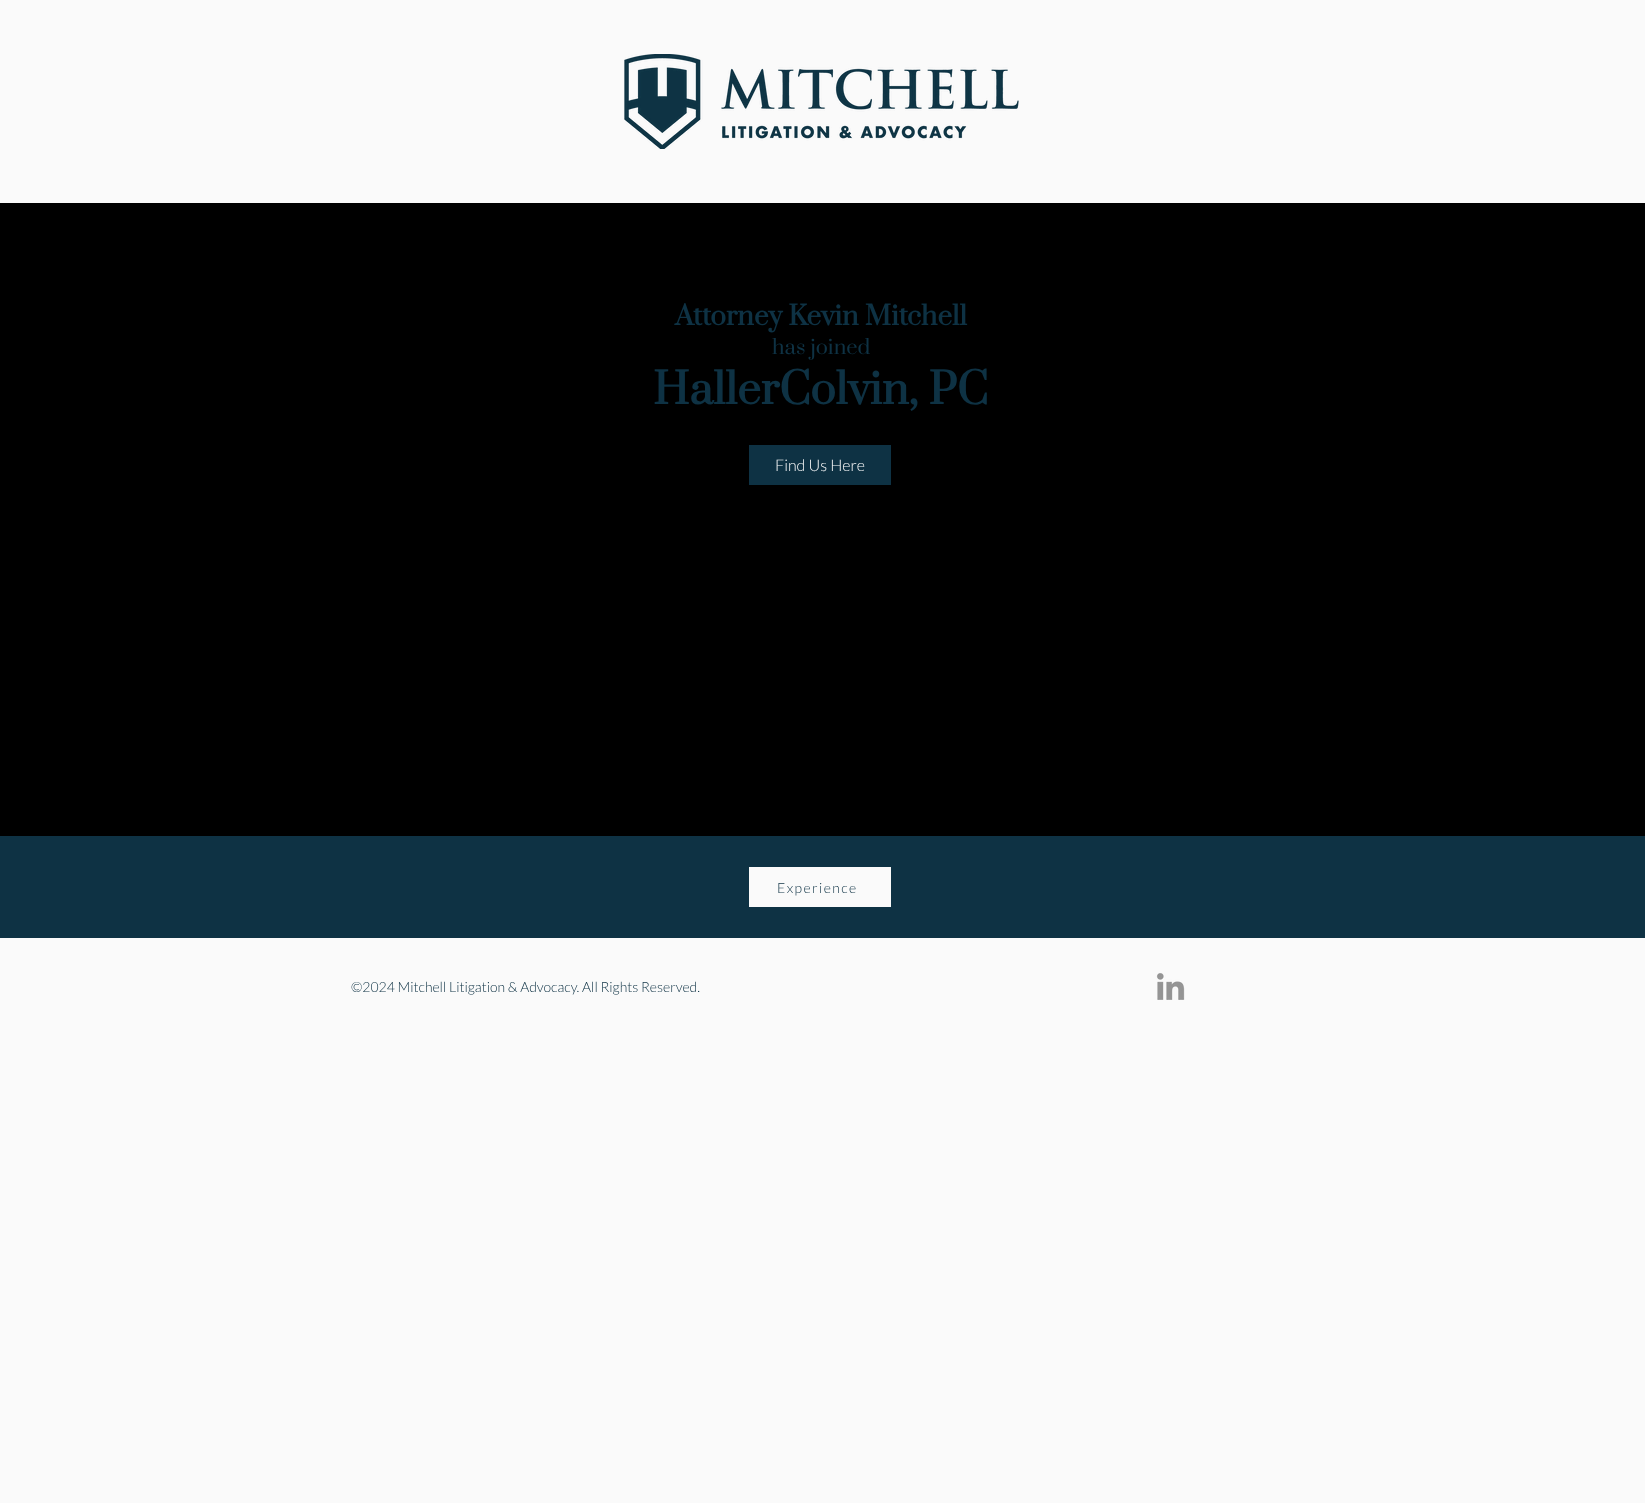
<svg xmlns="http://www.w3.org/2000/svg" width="1645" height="1503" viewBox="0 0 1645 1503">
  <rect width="100%" height="100%" fill="rgb(250,250,250)"/>
  <image x="624" y="54" width="395" height="95" href="pic1.png"/>
  <rect x="0" y="203" width="1645" height="633" fill="rgb(0,0,0)"/>
  <text x="675" y="325" font-family="Prata" font-size="26" font-weight="bold" fill="rgb(14,50,68)">Attorney Kevin Mitchell</text>
  <text x="772" y="354" font-family="Prata" font-size="20" fill="rgb(14,50,68)">has joined</text>
  <text x="653" y="404" font-family="Prata" font-size="42" font-weight="bold" fill="rgb(14,50,68)">HallerColvin, PC</text>
  <rect x="749" y="445" width="142" height="40" fill="rgb(14,50,68)"/>
  <text x="775" y="471" font-family="Lato" font-size="16" font-weight="300" fill="rgb(250,250,250)">Find Us Here</text>
  <rect x="0" y="836" width="1645" height="102" fill="rgb(14,50,68)"/>
  <rect x="749" y="867" width="142" height="40" fill="rgb(250,250,250)"/>
  <text x="777" y="893" font-family="Lato" font-size="14" font-weight="300" letter-spacing="1.4" fill="rgb(14,50,68)">Experience</text>
  <text x="351" y="992" font-family="Lato" font-size="14" font-weight="300" fill="rgb(14,50,68)">©2024 Mitchell Litigation &amp; Advocacy. All Rights Reserved.</text>
  <image x="1156" y="973" width="29" height="27" href="pic2.png"/>
</svg>
